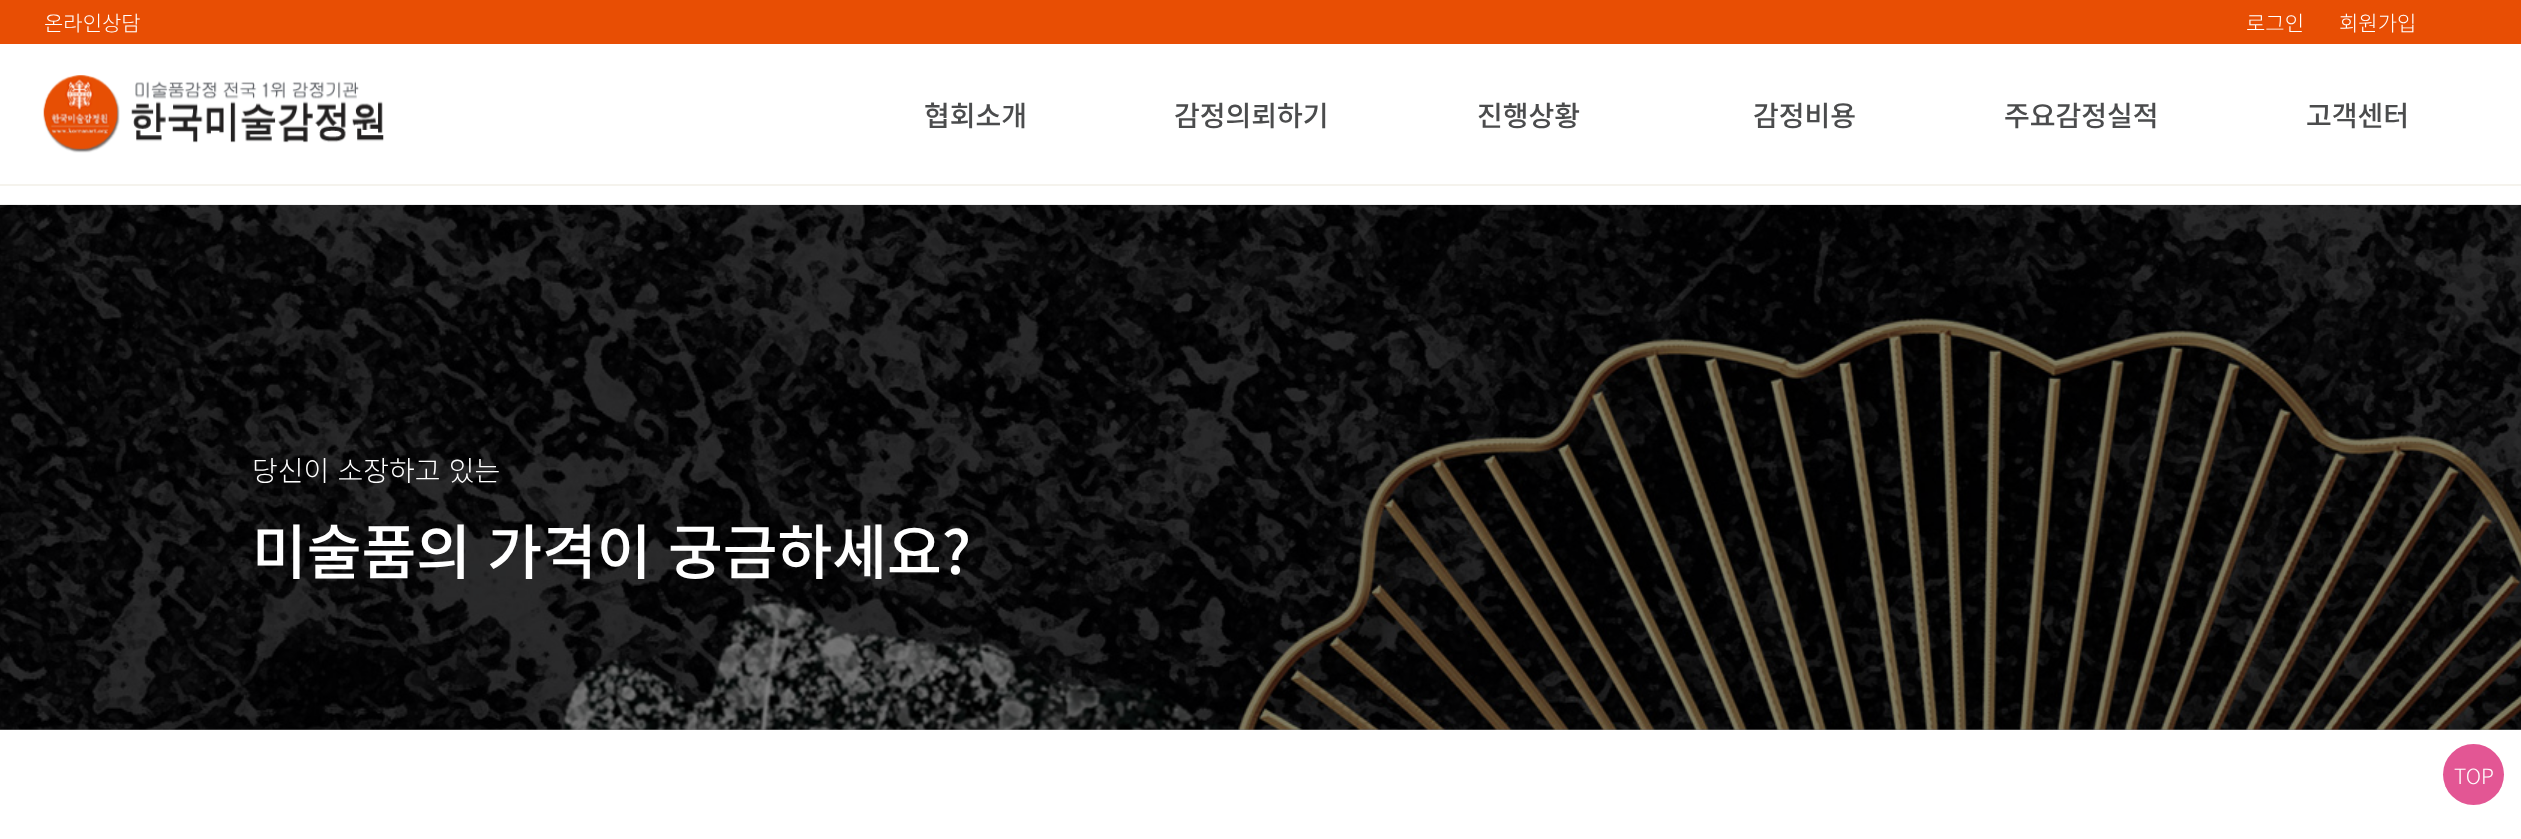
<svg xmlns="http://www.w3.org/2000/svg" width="2521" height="839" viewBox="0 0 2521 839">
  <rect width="100%" height="100%" fill="rgb(255,255,255)"/>
  <rect x="0" y="0" width="2521" height="44" fill="rgb(232,78,4)"/>
  <g font-family="Noto Sans KR" font-size="21" font-weight="300" fill="rgb(255,255,255)">
    <text x="44" y="31">온라인상담</text>
    <text x="2246" y="31">로그인</text>
    <text x="2339" y="31">회원가입</text>
  </g>
  <rect x="0" y="184" width="2521" height="2" fill="rgb(245,243,237)"/>
  <image x="43" y="75" width="341" height="78" href="pic1.png"/>
  <g font-family="Noto Sans KR" font-size="28" font-weight="500" fill="rgb(75,76,77)">
    <text x="924" y="126">협회소개</text>
    <text x="1174" y="126">감정의뢰하기</text>
    <text x="1477" y="126">진행상황</text>
    <text x="1753" y="126">감정비용</text>
    <text x="2004" y="126">주요감정실적</text>
    <text x="2306" y="126">고객센터</text>
  </g>
  <image x="0" y="204" width="2521" height="526" href="pic2.png"/>
  <rect x="0" y="205" width="1262" height="525" fill="rgba(0,0,0,0.5)"/>
  <rect x="1262" y="205" width="1259" height="525" fill="rgba(0,0,0,0.5)"/>
  <text x="252" y="481" word-spacing="2" font-family="Noto Sans KR" font-size="28" font-weight="300" fill="rgb(255,255,255)">당신이 소장하고 있는</text>
  <text x="252" y="574" word-spacing="3" font-family="Noto Sans KR" font-size="59.5" font-weight="500" fill="rgb(255,255,255)">미술품의 가격이 궁금하세요?</text>
  <circle cx="2473.5" cy="774.5" r="30.5" fill="rgb(227,86,148)"/>
  <text x="2454" y="784" font-family="Noto Sans KR" font-size="21" font-weight="300" fill="rgb(255,255,255)">TOP</text>
</svg>
